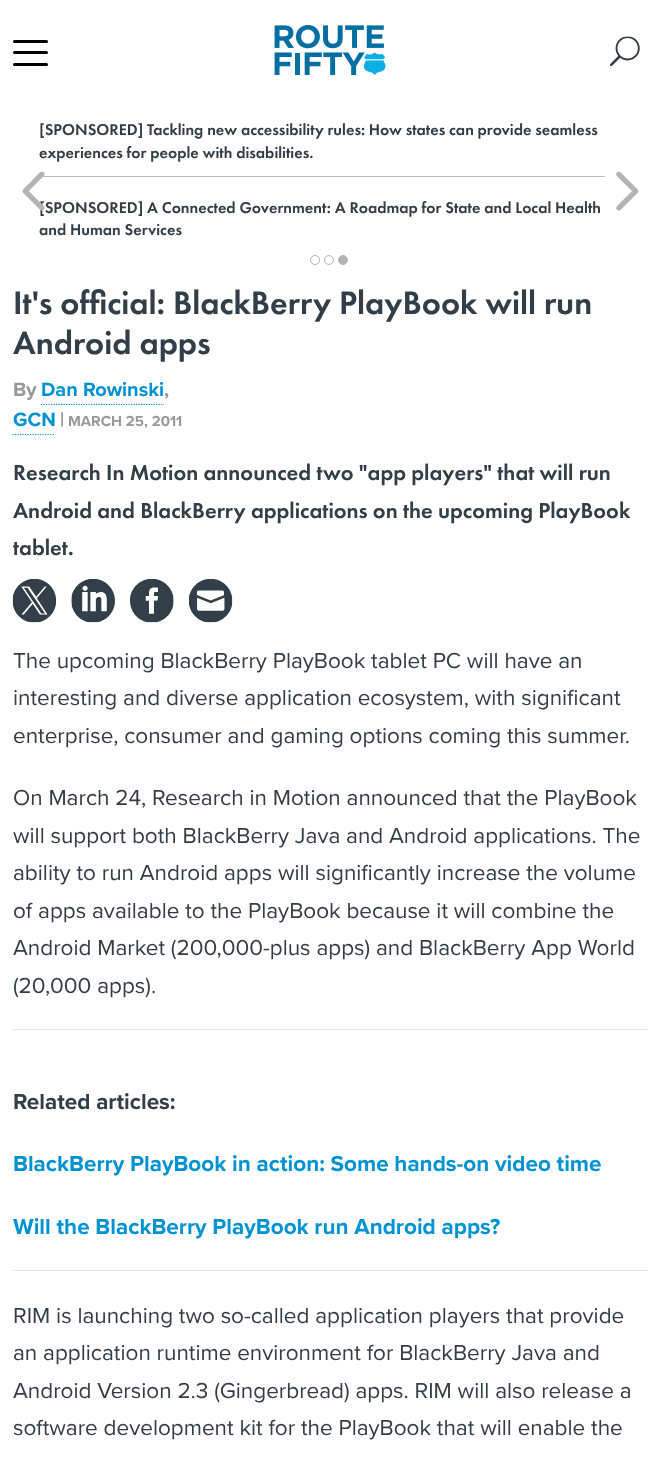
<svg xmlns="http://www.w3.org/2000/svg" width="660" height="1461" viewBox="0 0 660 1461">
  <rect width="100%" height="100%" fill="rgb(255,255,255)"/>
  <rect x="13" y="51" width="35" height="3" rx="1.5" fill="rgb(0,0,0)"/>
  <rect x="13" y="40" width="35" height="3" rx="1.5" fill="rgb(0,0,0)"/>
  <rect x="13" y="63" width="35" height="3" rx="1.5" fill="rgb(0,0,0)"/>
  <image x="274" y="25" width="112" height="50" href="pic1.png"/>
  <image x="610" y="36" width="30" height="30" href="pic2.png"/>
  <rect x="39" y="176" width="566" height="1" fill="rgb(187,187,187)"/>
  <text x="39" y="213" font-family="Futura PT" font-size="16.25" font-weight="500" fill="rgb(51,63,72)">[SPONSORED] A Connected Government: A Roadmap for State and Local Health</text>
  <image x="22" y="171" width="23" height="40" href="pic3.png"/>
  <g font-family="Futura PT" font-size="16.25" font-weight="500" fill="rgb(51,63,72)">
    <text>
      <tspan x="39" y="135">[SPONSORED] Tackling new accessibility rules: How states can provide seamless</tspan>
      <tspan x="39" y="158">experiences for people with disabilities.</tspan>
    </text>
    <text x="39" y="235">and Human Services</text>
  </g>
  <image x="616" y="171" width="23" height="40" href="pic4.png"/>
  <circle cx="315" cy="260" r="4.5" fill="none" stroke="rgb(180,180,180)"/>
  <circle cx="329" cy="260" r="4.5" fill="none" stroke="rgb(180,180,180)"/>
  <circle cx="343" cy="260" r="4.5" fill="rgb(180,180,180)" stroke="rgb(180,180,180)"/>
  <g font-family="Futura PT" font-size="33.75" font-weight="500" fill="rgb(51,63,72)">
    <text>
      <tspan x="13" y="314">It's official: BlackBerry PlayBook will run</tspan>
      <tspan x="13" y="354">Android apps</tspan>
    </text>
  </g>
  <text x="13" y="396" font-family="Proxima Nova" font-size="20" font-weight="bold" fill="rgb(153,153,153)">By</text>
  <text x="41" y="396" font-family="Proxima Nova" font-size="20" font-weight="bold" fill="rgb(0,147,211)">Dan Rowinski</text>
  <text x="164" y="396" font-family="Proxima Nova" font-size="20" font-weight="bold" fill="rgb(153,153,153)">,</text>
  <path d="M41 404.5H164" fill="none" stroke="rgb(0,147,211)" stroke-width="1.2" stroke-dasharray="1.25 1.25"/>
  <text x="13" y="426" font-family="Proxima Nova" font-size="20" font-weight="bold" fill="rgb(0,147,211)">GCN</text>
  <path d="M12.5 434.5H55" fill="none" stroke="rgb(0,147,211)" stroke-width="1.2" stroke-dasharray="1.25 1.25"/>
  <text x="60" y="426" font-family="Proxima Nova" font-size="20" font-weight="bold" fill="rgb(153,153,153)">|</text>
  <text x="68" y="426" font-family="Proxima Nova" font-size="15" font-weight="bold" fill="rgb(153,153,153)">MARCH 25, 2011</text>
  <g font-family="Futura PT" font-size="22.5" font-weight="500" fill="rgb(51,63,72)">
    <text>
      <tspan x="13" y="480">Research In Motion announced two "app players" that will run</tspan>
      <tspan x="13" y="518">Android and BlackBerry applications on the upcoming PlayBook</tspan>
      <tspan x="13" y="555">tablet.</tspan>
    </text>
  </g>
  <image x="12" y="579" width="44" height="44" href="pic5.png"/>
  <image x="71" y="579" width="44" height="44" href="pic6.png"/>
  <image x="130" y="579" width="44" height="44" href="pic7.png"/>
  <image x="189" y="579" width="44" height="44" href="pic8.png"/>
  <g font-family="Proxima Nova" font-size="22.5" fill="rgb(51,63,72)">
    <text>
      <tspan x="13" y="668">The upcoming BlackBerry PlayBook tablet PC will have an</tspan>
      <tspan x="13" y="705">interesting and diverse application ecosystem, with significant</tspan>
      <tspan x="13" y="743">enterprise, consumer and gaming options coming this summer.</tspan>
    </text>
    <text>
      <tspan x="13" y="805">On March 24, Research in Motion announced that the PlayBook</tspan>
      <tspan x="13" y="843">will support both BlackBerry Java and Android applications. The</tspan>
      <tspan x="13" y="880">ability to run Android apps will significantly increase the volume</tspan>
      <tspan x="13" y="918">of apps available to the PlayBook because it will combine the</tspan>
      <tspan x="13" y="955">Android Market (200,000-plus apps) and BlackBerry App World</tspan>
      <tspan x="13" y="993">(20,000 apps).</tspan>
    </text>
  </g>
  <rect x="13" y="1029" width="635" height="1" fill="rgb(230,230,230)"/>
  <text x="13" y="1109" font-family="Proxima Nova" font-size="22.5" font-weight="bold" fill="rgb(51,63,72)">Related articles:</text>
  <g font-family="Proxima Nova" font-size="22.5" font-weight="bold" fill="rgb(0,147,211)">
    <text x="13" y="1171">BlackBerry PlayBook in action: Some hands-on video time</text>
    <text x="13" y="1234">Will the BlackBerry PlayBook run Android apps?</text>
  </g>
  <rect x="13" y="1270" width="635" height="1" fill="rgb(230,230,230)"/>
  <g font-family="Proxima Nova" font-size="22.5" fill="rgb(51,63,72)">
    <text>
      <tspan x="13" y="1323">RIM is launching two so-called application players that provide</tspan>
      <tspan x="13" y="1360">an application runtime environment for BlackBerry Java and</tspan>
      <tspan x="13" y="1398">Android Version 2.3 (Gingerbread) apps. RIM will also release a</tspan>
      <tspan x="13" y="1435">software development kit for the PlayBook that will enable the</tspan>
    </text>
  </g>
</svg>
